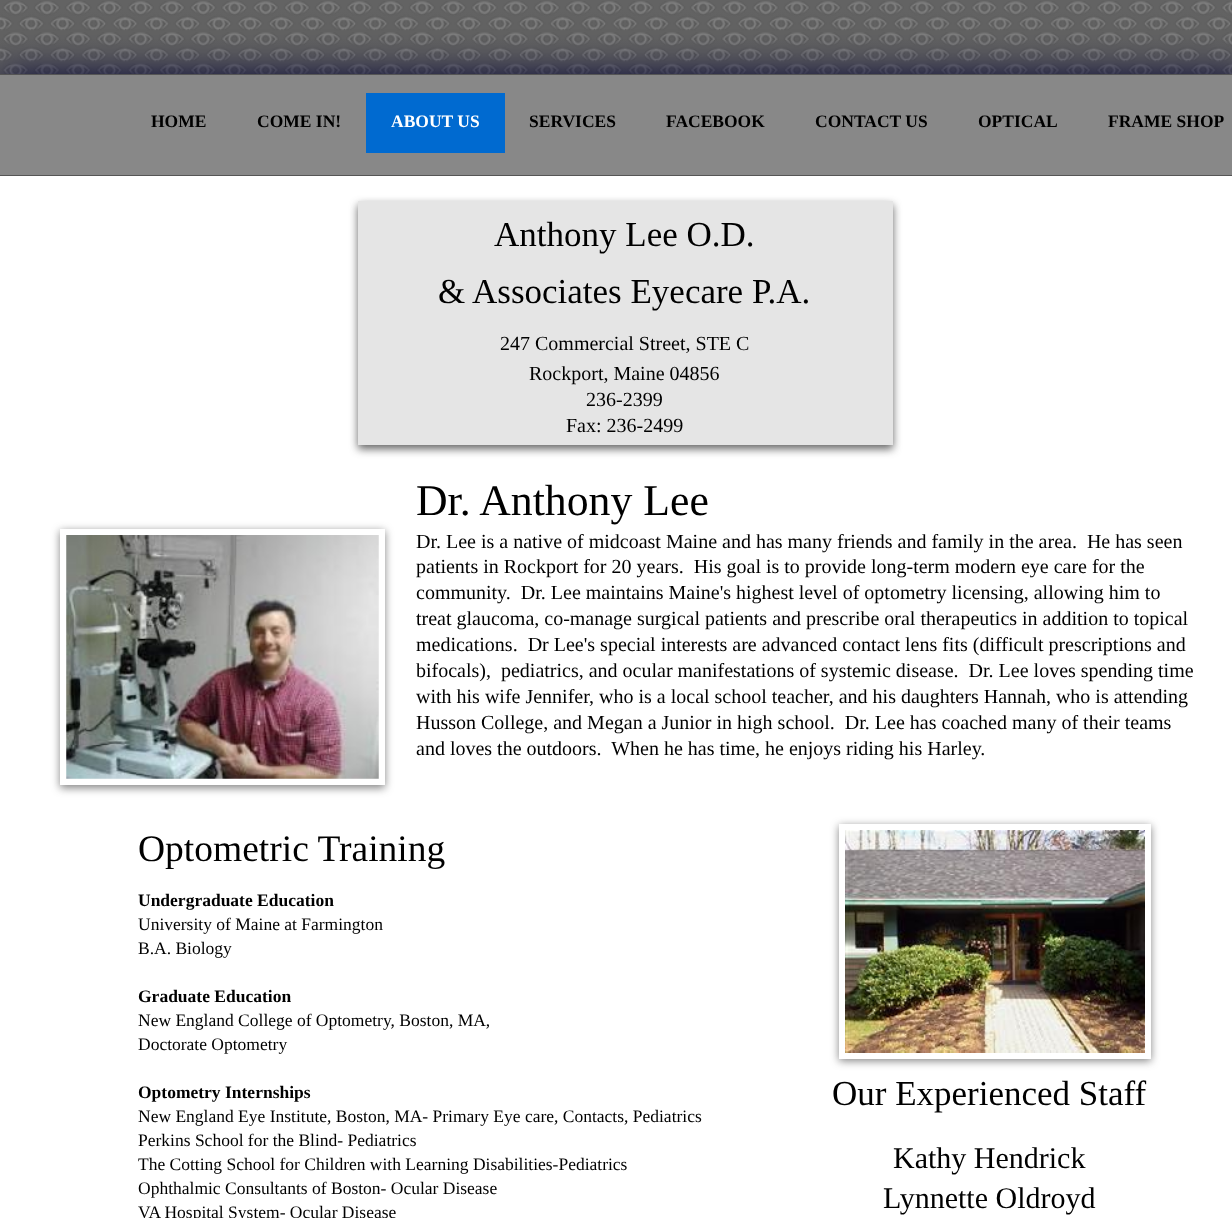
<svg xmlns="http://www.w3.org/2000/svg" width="1232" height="1218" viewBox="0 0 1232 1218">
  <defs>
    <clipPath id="clip1"><path d="M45 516H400V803H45ZM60 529H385V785H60Z" clip-rule="evenodd"/></clipPath>
  </defs>
  <rect width="100%" height="100%" fill="rgb(255,255,255)"/>
  <image x="0" y="0" width="1232" height="74" href="pic1.png"/>
  <rect x="0" y="75" width="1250" height="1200" fill="rgb(0,0,51)" filter="blur(19px)"/>
  <rect x="0" y="176" width="1232" height="1042" fill="rgb(255,255,255)"/>
  <rect x="-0.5" y="74.5" width="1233" height="101" fill="rgb(136,136,136)" stroke="rgb(85,85,85)"/>
  <g font-family="Liberation Serif" font-size="17.5" font-weight="bold" fill="rgb(0,0,0)">
    <text x="151" y="127">HOME</text>
    <text x="257" y="127">COME IN!</text>
  </g>
  <rect x="366" y="93" width="139" height="60" fill="rgb(0,106,208)"/>
  <text x="391" y="127" font-family="Liberation Serif" font-size="17.5" font-weight="bold" fill="rgb(255,255,255)">ABOUT US</text>
  <g font-family="Liberation Serif" font-size="17.5" font-weight="bold" fill="rgb(0,0,0)">
    <text x="529" y="127">SERVICES</text>
    <text x="666" y="127">FACEBOOK</text>
    <text x="815" y="127">CONTACT US</text>
    <text x="978" y="127">OPTICAL</text>
    <text x="1108" y="127">FRAME SHOP</text>
  </g>
  <rect x="358" y="205" width="535" height="244" fill="rgba(50,50,50,0.75)" filter="blur(4.5px)"/>
  <rect x="358" y="201" width="535" height="244" fill="rgb(229,229,229)"/>
  <g font-family="Liberation Serif" font-size="35" fill="rgb(0,0,0)">
    <text x="494" y="246">Anthony Lee O.D.</text>
    <text x="438" y="303">&amp; Associates Eyecare P.A.</text>
  </g>
  <g font-family="Liberation Serif" font-size="20" fill="rgb(0,0,0)">
    <text x="500" y="350">247 Commercial Street, STE C</text>
    <text x="529" y="380">Rockport, Maine 04856</text>
    <text x="586" y="406">236-2399</text>
    <text x="566" y="432">Fax: 236-2499</text>
  </g>
  <text x="416" y="515" font-family="Liberation Serif" font-size="43.75" fill="rgb(0,0,0)">Dr. Anthony Lee</text>
  <g clip-path="url(#clip1)">
    <rect x="60" y="531" width="325" height="257" fill="rgba(50,50,50,0.6)" filter="blur(4.5px)"/>
  </g>
  <image x="66" y="535" width="313" height="244" href="pic2.png"/>
  <g font-family="Liberation Serif" font-size="20" fill="rgb(0,0,0)">
    <text xml:space="preserve"><tspan x="416" y="548">Dr. Lee is a native of midcoast Maine and has many friends and family in the area.  He has seen</tspan><tspan x="416" y="573">patients in Rockport for 20 years.  His goal is to provide long-term modern eye care for the</tspan><tspan x="416" y="599">community.  Dr. Lee maintains Maine's highest level of optometry licensing, allowing him to</tspan><tspan x="416" y="625">treat glaucoma, co-manage surgical patients and prescribe oral therapeutics in addition to topical</tspan><tspan x="416" y="651">medications.  Dr Lee's special interests are advanced contact lens fits (difficult prescriptions and</tspan><tspan x="416" y="677">bifocals),  pediatrics, and ocular manifestations of systemic disease.  Dr. Lee loves spending time</tspan><tspan x="416" y="703">with his wife Jennifer, who is a local school teacher, and his daughters Hannah, who is attending</tspan><tspan x="416" y="729">Husson College, and Megan a Junior in high school.  Dr. Lee has coached many of their teams</tspan><tspan x="416" y="755">and loves the outdoors.  When he has time, he enjoys riding his Harley.</tspan></text>
  </g>
  <text x="138" y="861" font-family="Liberation Serif" font-size="37.5" fill="rgb(0,0,0)">Optometric Training</text>
  <rect x="839" y="826" width="312" height="235" fill="rgba(50,50,50,0.6)" filter="blur(4.5px)"/>
  <rect x="842" y="827" width="306" height="229" fill="none" stroke="rgb(255,255,255)" stroke-width="6"/>
  <image x="845" y="830" width="300" height="223" href="pic3.png"/>
  <text x="138" y="906" font-family="Liberation Serif" font-size="17.5" font-weight="bold" fill="rgb(0,0,0)">Undergraduate Education</text>
  <g font-family="Liberation Serif" font-size="17.5" fill="rgb(0,0,0)">
    <text>
      <tspan x="138" y="930">University of Maine at Farmington</tspan>
      <tspan x="138" y="954">B.A. Biology</tspan>
    </text>
  </g>
  <text x="138" y="1002" font-family="Liberation Serif" font-size="17.5" font-weight="bold" fill="rgb(0,0,0)">Graduate Education</text>
  <g font-family="Liberation Serif" font-size="17.5" fill="rgb(0,0,0)">
    <text>
      <tspan x="138" y="1026">New England College of Optometry, Boston, MA,</tspan>
      <tspan x="138" y="1050">Doctorate Optometry</tspan>
    </text>
  </g>
  <text x="138" y="1098" font-family="Liberation Serif" font-size="17.5" font-weight="bold" fill="rgb(0,0,0)">Optometry Internships</text>
  <g font-family="Liberation Serif" font-size="17.5" fill="rgb(0,0,0)">
    <text>
      <tspan x="138" y="1122">New England Eye Institute, Boston, MA- Primary Eye care, Contacts, Pediatrics</tspan>
      <tspan x="138" y="1146">Perkins School for the Blind- Pediatrics</tspan>
      <tspan x="138" y="1170">The Cotting School for Children with Learning Disabilities-Pediatrics</tspan>
      <tspan x="138" y="1194">Ophthalmic Consultants of Boston- Ocular Disease</tspan>
      <tspan x="138" y="1218">VA Hospital System- Ocular Disease</tspan>
    </text>
  </g>
  <text x="832" y="1105" font-family="Liberation Serif" font-size="35" fill="rgb(0,0,0)">Our Experienced Staff</text>
  <g font-family="Liberation Serif" font-size="30" fill="rgb(0,0,0)">
    <text x="893" y="1168">Kathy Hendrick</text>
    <text x="883" y="1208">Lynnette Oldroyd</text>
  </g>
</svg>
